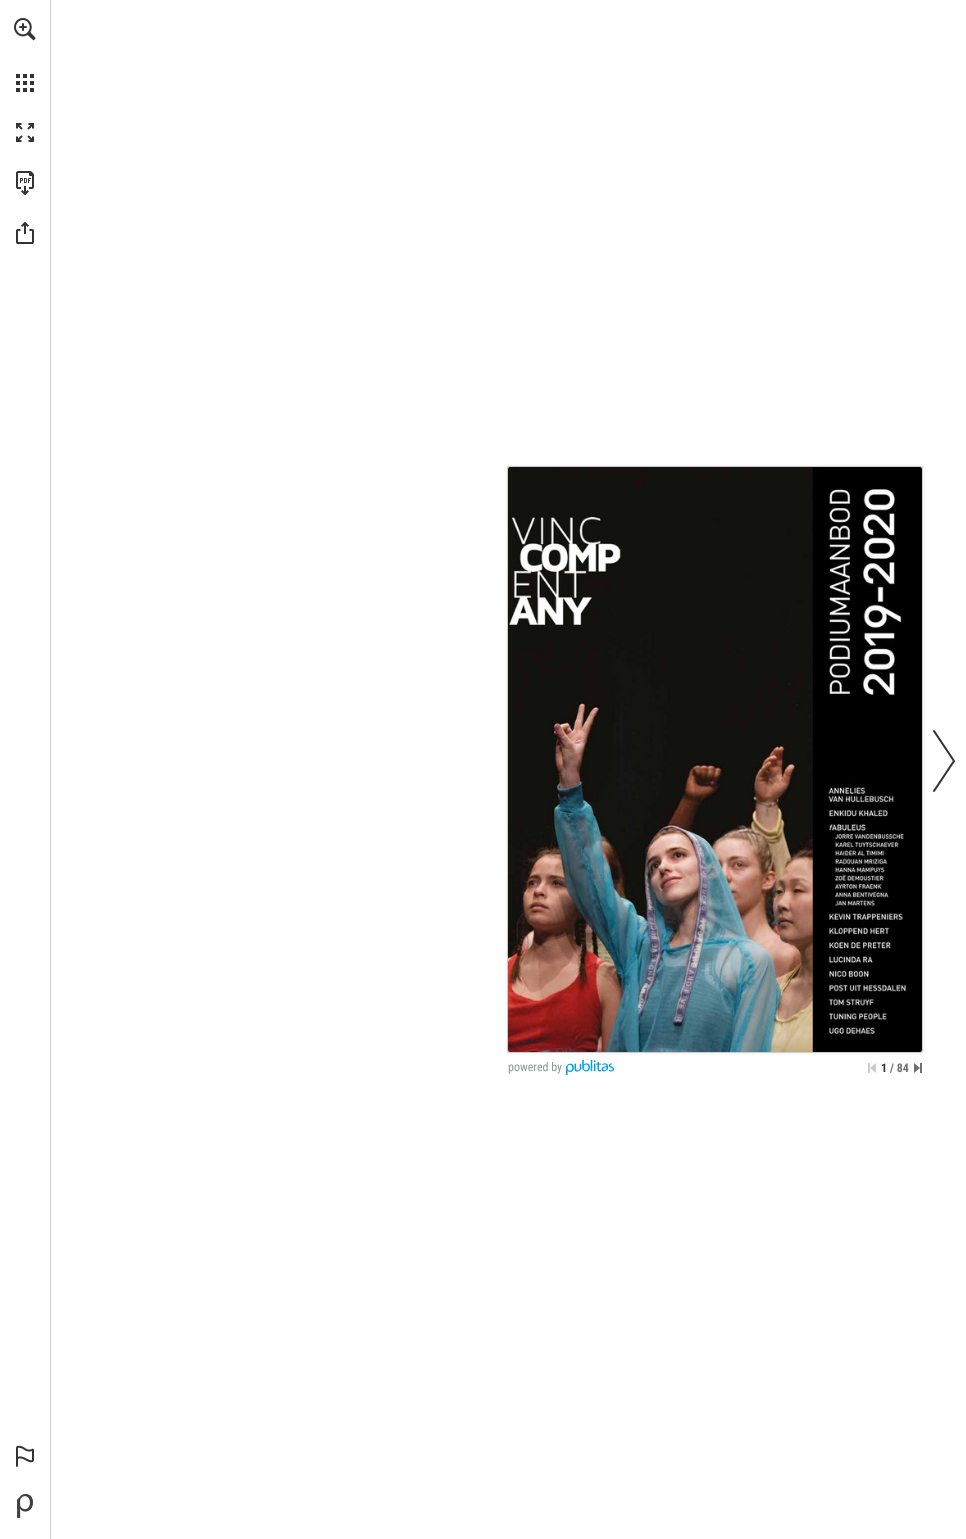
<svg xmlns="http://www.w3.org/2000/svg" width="966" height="1539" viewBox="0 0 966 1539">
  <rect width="100%" height="100%" fill="rgb(255,255,255)"/>
  <rect x="1" y="0" width="50" height="1539" fill="rgba(0,0,0,0.2)" filter="blur(0.5px)"/>
  <rect x="0" y="0" width="50" height="1539" fill="rgb(255,255,255)"/>
  <image x="14" y="18" width="22" height="23" href="pic1.png"/>
  <image x="16" y="74" width="18" height="18" href="pic2.png"/>
  <image x="16" y="123" width="18" height="19" href="pic3.png"/>
  <image x="16" y="171" width="18" height="24" href="pic4.png"/>
  <image x="16" y="222" width="18" height="22" href="pic5.png"/>
  <image x="16" y="1445" width="18" height="22" href="pic6.png"/>
  <image x="17" y="1494" width="16" height="24" href="pic7.png"/>
  <rect x="506" y="465" width="418" height="589" rx="3" fill="rgba(18,18,18,0.05)" filter="blur(1px)"/>
  <rect x="507.5" y="466.5" width="415" height="586" rx="1.5" fill="rgb(255,255,255)" stroke="rgb(204,204,204)"/>
  <image x="508" y="467" width="414" height="585" href="pic8.png"/>
  <image x="566" y="1060" width="48" height="15" href="pic9.png"/>
  <text x="508" y="1071" font-family="Roboto Condensed" font-size="12" fill="rgb(143,150,155)">powered by</text>
  <image x="933" y="730" width="23" height="62" href="pic10.png"/>
  <image x="868" y="1063" width="8" height="10" href="pic11.png"/>
  <text x="881" y="1072" font-family="Roboto Condensed" font-size="12" font-weight="bold" fill="rgb(51,51,51)">1</text>
  <text x="890" y="1072" font-family="Roboto Condensed" font-size="12" font-weight="bold" fill="rgb(112,112,112)">/ 84</text>
  <image x="914" y="1063" width="8" height="10" href="pic12.png"/>
</svg>
